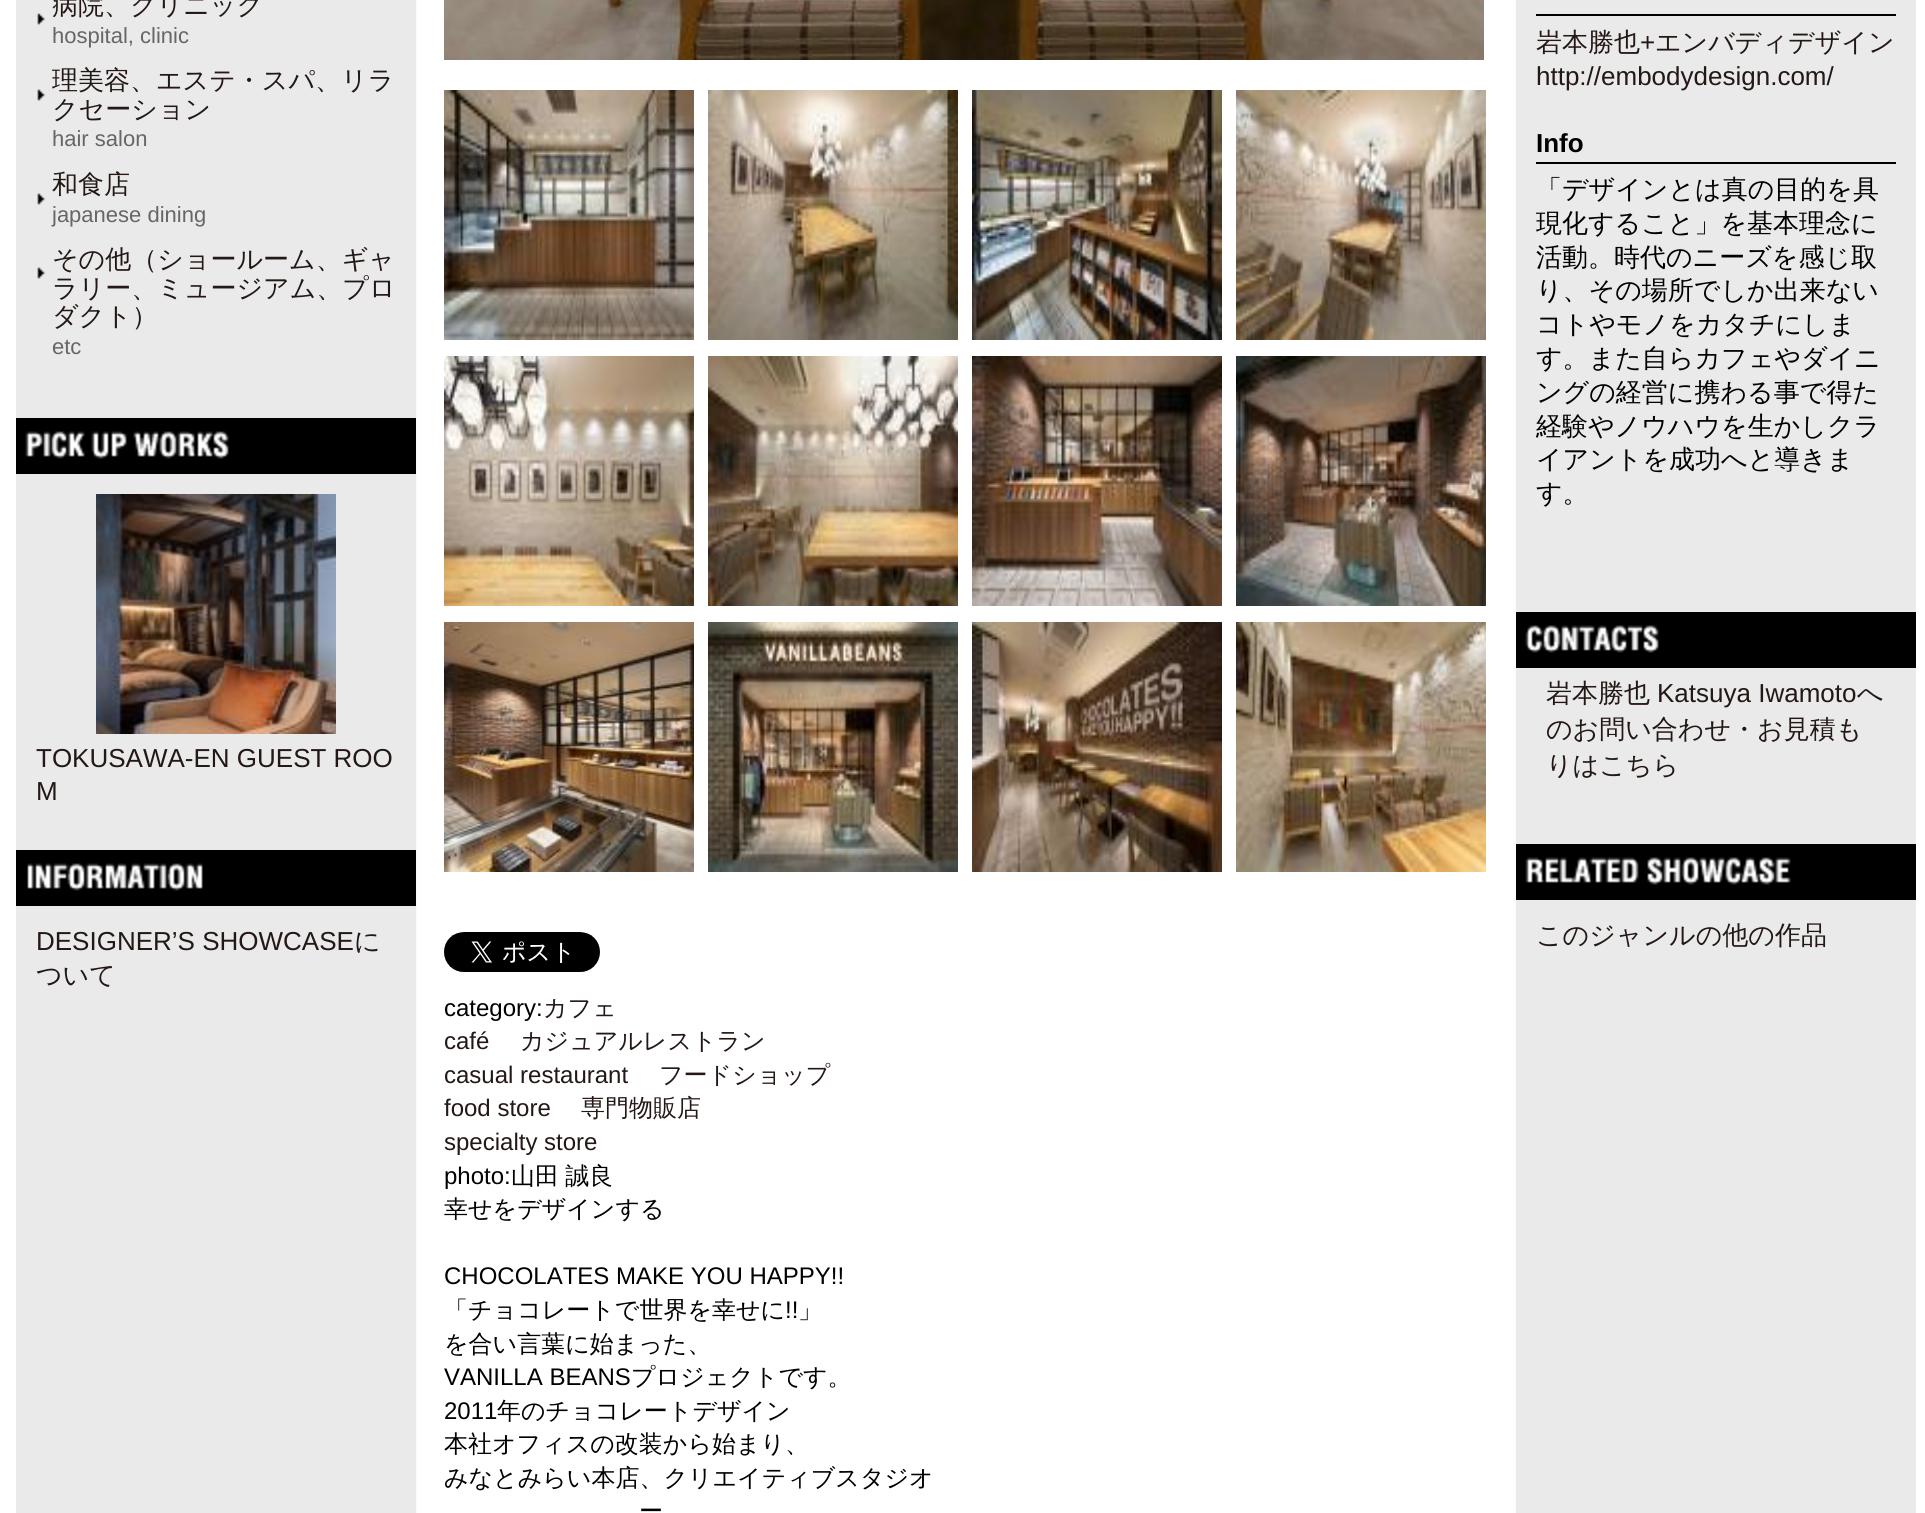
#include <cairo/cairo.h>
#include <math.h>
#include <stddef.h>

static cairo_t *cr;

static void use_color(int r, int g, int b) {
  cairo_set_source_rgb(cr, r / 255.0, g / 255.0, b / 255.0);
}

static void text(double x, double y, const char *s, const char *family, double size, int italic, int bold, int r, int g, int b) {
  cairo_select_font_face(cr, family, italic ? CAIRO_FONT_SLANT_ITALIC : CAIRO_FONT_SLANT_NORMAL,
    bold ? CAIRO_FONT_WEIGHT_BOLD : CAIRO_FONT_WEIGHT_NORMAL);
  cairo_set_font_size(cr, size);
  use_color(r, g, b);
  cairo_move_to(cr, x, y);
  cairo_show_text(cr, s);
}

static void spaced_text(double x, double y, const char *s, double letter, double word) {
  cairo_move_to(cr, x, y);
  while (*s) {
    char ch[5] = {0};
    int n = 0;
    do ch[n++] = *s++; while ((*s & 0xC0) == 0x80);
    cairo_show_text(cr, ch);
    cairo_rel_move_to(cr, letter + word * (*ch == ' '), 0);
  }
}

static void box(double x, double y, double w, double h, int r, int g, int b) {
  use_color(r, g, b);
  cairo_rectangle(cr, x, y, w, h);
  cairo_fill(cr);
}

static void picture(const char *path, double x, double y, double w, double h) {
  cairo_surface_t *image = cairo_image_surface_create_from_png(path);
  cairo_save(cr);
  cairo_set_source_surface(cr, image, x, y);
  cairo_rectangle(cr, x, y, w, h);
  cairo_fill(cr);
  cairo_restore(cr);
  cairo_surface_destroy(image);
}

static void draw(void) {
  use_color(255, 255, 255);
  cairo_paint(cr);
  picture("img_01.png", 416, 0, 1100, 1513);
  box(16, 0, 400, 1513, 234, 234, 234);
  picture("img_02.png", 37, 13, 8, 12);
  picture("img_02.png", 37, 89, 8, 12);
  picture("img_02.png", 37, 193, 8, 12);
  picture("img_02.png", 37, 267, 8, 12);
  picture("img_03.png", 16, 418, 400, 56);
  picture("img_04.png", 96, 494, 240, 240);
  picture("img_05.png", 16, 850, 400, 56);
  picture("img_06.png", 444, 0, 1040, 60);
  picture("img_07.png", 444, 90, 250, 250);
  picture("img_08.png", 708, 90, 250, 250);
  picture("img_09.png", 972, 90, 250, 250);
  picture("img_10.png", 1236, 90, 250, 250);
  picture("img_11.png", 444, 356, 250, 250);
  picture("img_12.png", 708, 356, 250, 250);
  picture("img_13.png", 972, 356, 250, 250);
  picture("img_14.png", 1236, 356, 250, 250);
  picture("img_15.png", 444, 622, 250, 250);
  picture("img_16.png", 708, 622, 250, 250);
  picture("img_17.png", 972, 622, 250, 250);
  picture("img_18.png", 1236, 622, 250, 250);
  picture("img_19.png", 444, 932, 156, 40);
  box(1516, 0, 400, 1513, 234, 234, 234);
  box(1536, 14, 360, 2, 0, 0, 0);
  box(1536, 162, 360, 2, 0, 0, 0);
  picture("img_20.png", 1516, 612, 400, 56);
  picture("img_21.png", 1516, 844, 400, 56);
  text(52, 14, "病院、クリニック", "WenQuanYi Zen Hei Medium", 26, 0, 0, 35, 24, 21);
  text(52, 43, "hospital, clinic", "Liberation Sans", 22, 0, 0, 102, 102, 102);
  text(52, 89, "理美容、エステ・スパ、リラ", "WenQuanYi Zen Hei Medium", 26, 0, 0, 35, 24, 21);
  text(52, 118, "クセーション", "WenQuanYi Zen Hei Medium", 26, 0, 0, 35, 24, 21);
  text(52, 146, "hair salon", "Liberation Sans", 22, 0, 0, 102, 102, 102);
  text(52, 193, "和食店", "WenQuanYi Zen Hei Medium", 26, 0, 0, 35, 24, 21);
  text(52, 222, "japanese dining", "Liberation Sans", 22, 0, 0, 102, 102, 102);
  text(52, 268, "その他（ショールーム、ギャ", "WenQuanYi Zen Hei Medium", 26, 0, 0, 35, 24, 21);
  text(52, 297, "ラリー、ミュージアム、プロ", "WenQuanYi Zen Hei Medium", 26, 0, 0, 35, 24, 21);
  text(52, 325, "ダクト）", "WenQuanYi Zen Hei Medium", 26, 0, 0, 35, 24, 21);
  text(52, 354, "etc", "Liberation Sans", 22, 0, 0, 102, 102, 102);
  text(36, 767, "TOKUSAWA-EN GUEST ROO", "Liberation Sans", 26, 0, 0, 35, 24, 21);
  text(36, 800, "M", "Liberation Sans", 26, 0, 0, 35, 24, 21);
  text(36, 950, "DESIGNER’S SHOWCASE", "Liberation Sans", 26, 0, 0, 35, 24, 21);
  text(354, 950, "に", "WenQuanYi Zen Hei Medium", 26, 0, 0, 35, 24, 21);
  text(36, 984, "ついて", "WenQuanYi Zen Hei Medium", 26, 0, 0, 35, 24, 21);
  text(444, 1016, "category:", "Liberation Sans", 24, 0, 0, 0, 0, 0);
  text(543, 1016, "カフェ", "WenQuanYi Zen Hei Medium", 24, 0, 0, 35, 24, 21);
  text(444, 1049, "café", "Liberation Sans", 24, 0, 0, 35, 24, 21);
  text(520, 1049, "カジュアルレストラン", "WenQuanYi Zen Hei Medium", 24, 0, 0, 35, 24, 21);
  text(444, 1083, "casual restaurant", "Liberation Sans", 24, 0, 0, 35, 24, 21);
  text(659, 1083, "フードショップ", "WenQuanYi Zen Hei Medium", 24, 0, 0, 35, 24, 21);
  text(444, 1116, "food store", "Liberation Sans", 24, 0, 0, 35, 24, 21);
  text(581, 1116, "専門物販店", "WenQuanYi Zen Hei Medium", 24, 0, 0, 35, 24, 21);
  text(444, 1150, "specialty store", "Liberation Sans", 24, 0, 0, 35, 24, 21);
  text(444, 1184, "photo:", "Liberation Sans", 24, 0, 0, 0, 0, 0);
  cairo_select_font_face(cr, "WenQuanYi Zen Hei Medium", CAIRO_FONT_SLANT_NORMAL, CAIRO_FONT_WEIGHT_NORMAL);
  spaced_text(511, 1184, "山田 誠良", 0, -1);
  text(444, 1217, "幸せをデザインする", "WenQuanYi Zen Hei Medium", 24, 0, 0, 0, 0, 0);
  text(444, 1284, "CHOCOLATES MAKE YOU HAPPY!!", "Liberation Sans", 24, 0, 0, 0, 0, 0);
  text(444, 1318, "「チョコレートで世界を幸せに", "WenQuanYi Zen Hei Medium", 24, 0, 0, 0, 0, 0);
  text(785, 1318, "!!", "Liberation Sans", 24, 0, 0, 0, 0, 0);
  text(798, 1318, "」", "WenQuanYi Zen Hei Medium", 24, 0, 0, 0, 0, 0);
  text(444, 1352, "を合い言葉に始まった、", "WenQuanYi Zen Hei Medium", 24, 0, 0, 0, 0, 0);
  text(444, 1385, "VANILLA BEANS", "Liberation Sans", 24, 0, 0, 0, 0, 0);
  text(631, 1385, "プロジェクトです。", "WenQuanYi Zen Hei Medium", 24, 0, 0, 0, 0, 0);
  text(444, 1419, "2011", "Liberation Sans", 24, 0, 0, 0, 0, 0);
  text(497, 1419, "年のチョコレートデザイン", "WenQuanYi Zen Hei Medium", 24, 0, 0, 0, 0, 0);
  text(444, 1452, "本社オフィスの改装から始まり、", "WenQuanYi Zen Hei Medium", 24, 0, 0, 0, 0, 0);
  text(444, 1486, "みなとみらい本店、クリエイティブスタジオ", "WenQuanYi Zen Hei Medium", 24, 0, 0, 0, 0, 0);
  text(639, 1519, "ー", "WenQuanYi Zen Hei Medium", 24, 0, 0, 0, 0, 0);
  text(1536, 51, "岩本勝也", "WenQuanYi Zen Hei Medium", 26, 0, 0, 35, 24, 21);
  text(1640, 51, "+", "Liberation Sans", 26, 0, 0, 35, 24, 21);
  text(1655, 51, "エンバディデザイン", "WenQuanYi Zen Hei Medium", 26, 0, 0, 35, 24, 21);
  text(1536, 85, "http://embodydesign.com/", "Liberation Sans", 26, 0, 0, 35, 24, 21);
  text(1536, 152, "Info", "Liberation Sans", 26, 0, 1, 0, 0, 0);
  text(1536, 198, "「デザインとは真の目的を具", "WenQuanYi Zen Hei Medium", 26, 0, 0, 0, 0, 0);
  text(1536, 232, "現化すること」を基本理念に", "WenQuanYi Zen Hei Medium", 26, 0, 0, 0, 0, 0);
  text(1536, 266, "活動。時代のニーズを感じ取", "WenQuanYi Zen Hei Medium", 26, 0, 0, 0, 0, 0);
  text(1536, 299, "り、その場所でしか出来ない", "WenQuanYi Zen Hei Medium", 26, 0, 0, 0, 0, 0);
  text(1536, 333, "コトやモノをカタチにしま", "WenQuanYi Zen Hei Medium", 26, 0, 0, 0, 0, 0);
  text(1536, 367, "す。また自らカフェやダイニ", "WenQuanYi Zen Hei Medium", 26, 0, 0, 0, 0, 0);
  text(1536, 401, "ングの経営に携わる事で得た", "WenQuanYi Zen Hei Medium", 26, 0, 0, 0, 0, 0);
  text(1536, 435, "経験やノウハウを生かしクラ", "WenQuanYi Zen Hei Medium", 26, 0, 0, 0, 0, 0);
  text(1536, 468, "イアントを成功へと導きま", "WenQuanYi Zen Hei Medium", 26, 0, 0, 0, 0, 0);
  text(1536, 502, "す。", "WenQuanYi Zen Hei Medium", 26, 0, 0, 0, 0, 0);
  text(1546, 702, "岩本勝也", "WenQuanYi Zen Hei Medium", 26, 0, 0, 35, 24, 21);
  text(1657, 702, "Katsuya Iwamoto", "Liberation Sans", 26, 0, 0, 35, 24, 21);
  text(1857, 702, "へ", "WenQuanYi Zen Hei Medium", 26, 0, 0, 35, 24, 21);
  text(1546, 738, "のお問い合わせ・お見積も", "WenQuanYi Zen Hei Medium", 26, 0, 0, 35, 24, 21);
  text(1546, 774, "りはこちら", "WenQuanYi Zen Hei Medium", 26, 0, 0, 35, 24, 21);
  text(1536, 944, "このジャンルの他の作品", "WenQuanYi Zen Hei Medium", 26, 0, 0, 35, 24, 21);
}

int main(void) {
  cairo_surface_t *surface = cairo_image_surface_create(CAIRO_FORMAT_RGB24, 1925, 1513);
  cr = cairo_create(surface);
  cairo_font_options_t *options = cairo_font_options_create();
  cairo_font_options_set_hint_metrics(options, CAIRO_HINT_METRICS_OFF);
  cairo_font_options_set_hint_style(options, CAIRO_HINT_STYLE_NONE);
  cairo_set_font_options(cr, options);
  cairo_set_miter_limit(cr, 4);
  draw();
  cairo_surface_write_to_png(surface, "out.png");
  cairo_font_options_destroy(options);
  cairo_destroy(cr);
  cairo_surface_destroy(surface);
  return 0;
}
